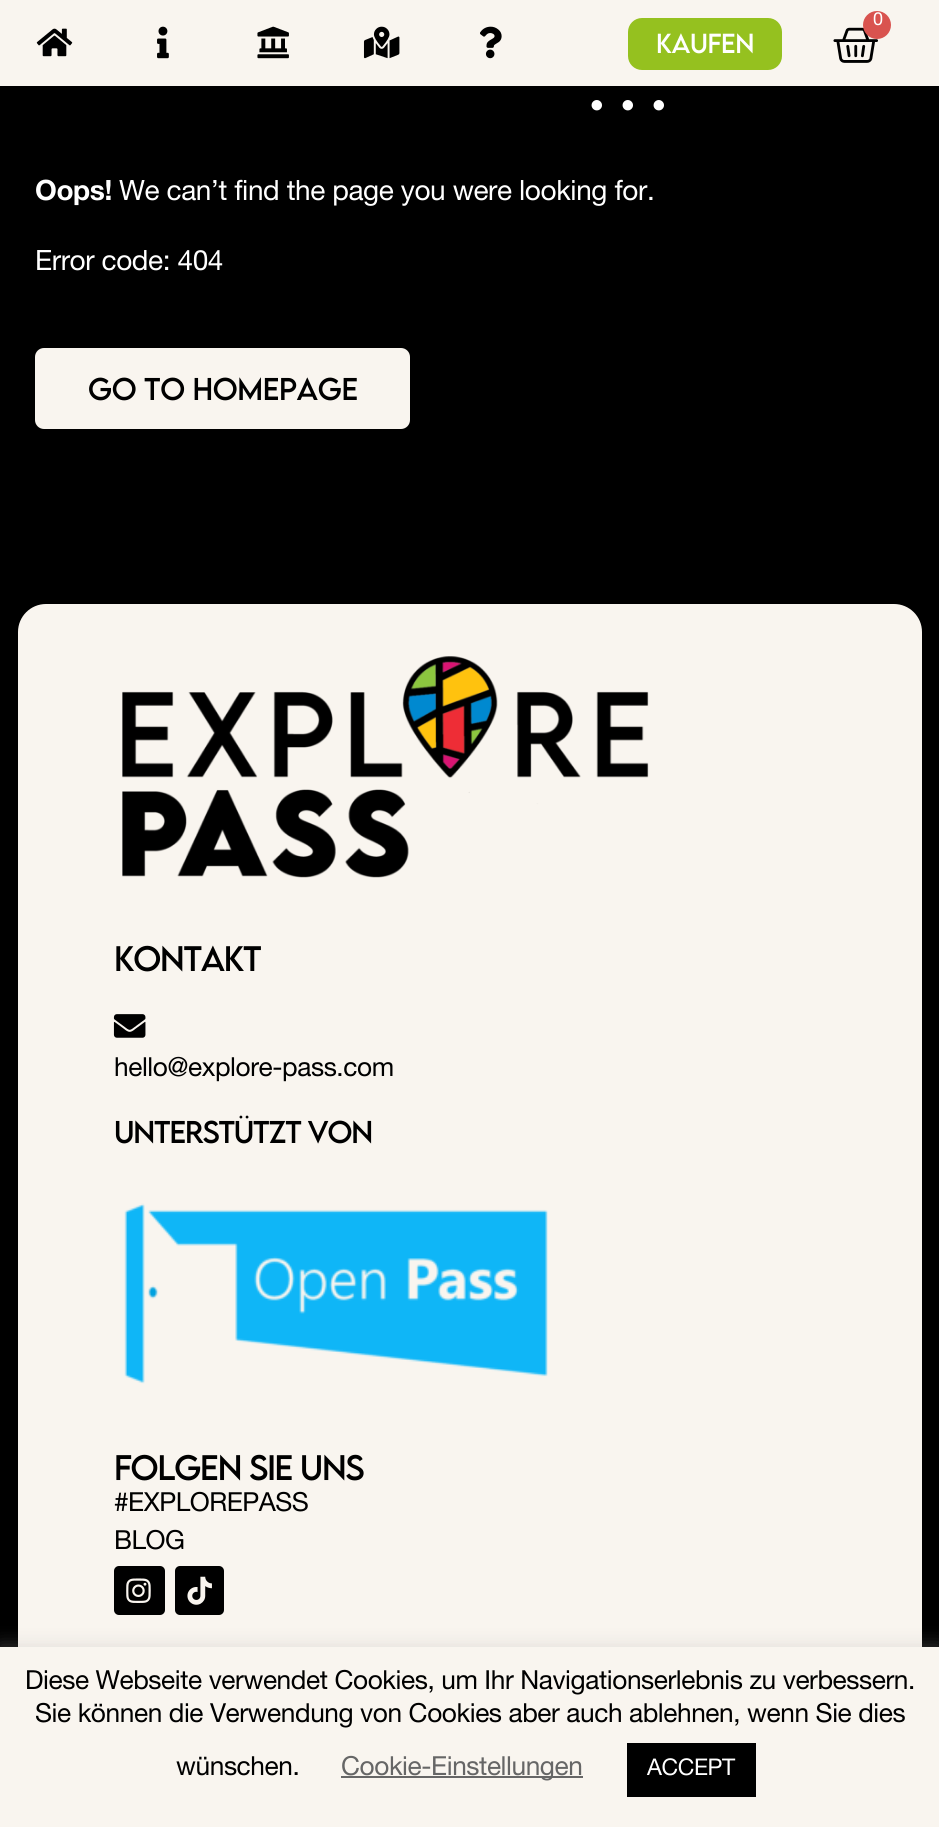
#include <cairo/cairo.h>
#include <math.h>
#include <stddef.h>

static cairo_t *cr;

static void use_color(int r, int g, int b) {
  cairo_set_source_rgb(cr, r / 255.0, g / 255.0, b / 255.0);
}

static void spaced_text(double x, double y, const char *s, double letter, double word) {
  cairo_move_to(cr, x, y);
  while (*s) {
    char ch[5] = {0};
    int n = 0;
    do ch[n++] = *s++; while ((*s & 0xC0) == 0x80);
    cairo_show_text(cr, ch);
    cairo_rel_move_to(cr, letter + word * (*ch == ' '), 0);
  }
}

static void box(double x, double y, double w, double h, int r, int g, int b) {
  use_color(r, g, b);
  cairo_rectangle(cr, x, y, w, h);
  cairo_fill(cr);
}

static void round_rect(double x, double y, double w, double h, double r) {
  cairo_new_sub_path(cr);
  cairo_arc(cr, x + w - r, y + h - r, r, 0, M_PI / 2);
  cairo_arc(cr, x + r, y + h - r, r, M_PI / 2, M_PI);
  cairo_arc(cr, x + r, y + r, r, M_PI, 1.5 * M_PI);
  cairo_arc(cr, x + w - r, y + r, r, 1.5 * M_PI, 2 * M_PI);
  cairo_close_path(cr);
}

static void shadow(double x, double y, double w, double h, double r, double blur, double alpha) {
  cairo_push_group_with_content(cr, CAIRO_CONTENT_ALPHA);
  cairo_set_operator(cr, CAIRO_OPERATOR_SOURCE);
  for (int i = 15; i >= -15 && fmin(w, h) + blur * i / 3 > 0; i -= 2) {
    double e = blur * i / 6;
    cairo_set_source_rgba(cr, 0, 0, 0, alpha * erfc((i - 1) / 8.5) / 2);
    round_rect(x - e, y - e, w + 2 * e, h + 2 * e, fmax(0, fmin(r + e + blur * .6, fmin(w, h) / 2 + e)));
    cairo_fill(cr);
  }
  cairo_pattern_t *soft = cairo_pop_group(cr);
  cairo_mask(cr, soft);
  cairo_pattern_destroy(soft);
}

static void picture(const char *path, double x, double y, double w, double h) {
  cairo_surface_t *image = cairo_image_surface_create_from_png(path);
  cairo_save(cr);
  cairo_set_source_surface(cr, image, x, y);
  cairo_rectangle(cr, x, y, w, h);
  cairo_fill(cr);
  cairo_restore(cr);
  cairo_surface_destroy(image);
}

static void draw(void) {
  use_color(0, 0, 0);
  cairo_paint(cr);
  box(0, 0, 939, 86, 249, 245, 239);
  picture("img_01.png", 36, 28, 37, 29);
  picture("img_02.png", 157, 26, 12, 33);
  picture("img_03.png", 257, 26, 32, 33);
  picture("img_04.png", 363, 26, 37, 33);
  picture("img_05.png", 480, 26, 22, 33);
  picture("img_06.png", 833, 27, 45, 36);
  use_color(217, 83, 79);
  cairo_arc(cr, 877, 25, 14, 0, 2 * M_PI);
  cairo_fill(cr);
  use_color(149, 193, 31);
  round_rect(628, 18, 154, 52, 14);
  cairo_fill(cr);
  use_color(249, 245, 239);
  round_rect(35, 348, 375, 81, 9);
  cairo_fill(cr);
  round_rect(18, 604, 904, 1214, 28);
  cairo_fill(cr);
  picture("img_07.png", 122, 656, 527, 222);
  picture("img_08.png", 113, 1014, 33, 24);
  picture("img_09.png", 124, 1203, 424, 181);
  use_color(0, 0, 0);
  round_rect(114, 1566, 51, 49, 5);
  cairo_fill(cr);
  picture("img_10.png", 126, 1578, 25, 25);
  round_rect(175, 1566, 49, 49, 5);
  cairo_fill(cr);
  picture("img_11.png", 187, 1576, 25, 29);
  use_color(172, 171, 171);
  shadow(0, 1645, 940, 180, 0, 9, 0.3);
  box(0, 1647, 939, 180, 249, 245, 239);
  box(341, 1776, 242, 2, 102, 102, 102);
  box(627, 1743, 129, 54, 0, 0, 0);
  cairo_select_font_face(cr, "Helvetica Neue", CAIRO_FONT_SLANT_NORMAL, CAIRO_FONT_WEIGHT_NORMAL);
  cairo_set_font_size(cr, 18);
  use_color(255, 255, 255);
  spaced_text(873, 25, "0", -0.4, 0);
  cairo_select_font_face(cr, "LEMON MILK", CAIRO_FONT_SLANT_NORMAL, CAIRO_FONT_WEIGHT_NORMAL);
  cairo_set_font_size(cr, 24.5);
  spaced_text(656, 53, "KAUFEN", -0.4, 0);
  cairo_set_font_size(cr, 63);
  spaced_text(588, 109, ". . .", -2.5, 0);
  cairo_select_font_face(cr, "Helvetica Neue", CAIRO_FONT_SLANT_NORMAL, CAIRO_FONT_WEIGHT_BOLD);
  cairo_set_font_size(cr, 28);
  spaced_text(35, 200, "Oops!", -0.4, 0);
  cairo_select_font_face(cr, "Helvetica Neue", CAIRO_FONT_SLANT_NORMAL, CAIRO_FONT_WEIGHT_NORMAL);
  spaced_text(119, 200, "We can’t find the page you were looking for.", -0.4, 0);
  spaced_text(35, 270, "Error code: 404", -0.4, 0);
  cairo_select_font_face(cr, "LEMON MILK", CAIRO_FONT_SLANT_NORMAL, CAIRO_FONT_WEIGHT_NORMAL);
  use_color(0, 0, 0);
  spaced_text(88, 400, "GO TO HOMEPAGE", -0.4, 0);
  cairo_set_font_size(cr, 31.5);
  spaced_text(114, 971, "Kontakt", -1.25, 0);
  cairo_select_font_face(cr, "Helvetica Neue", CAIRO_FONT_SLANT_NORMAL, CAIRO_FONT_WEIGHT_NORMAL);
  cairo_set_font_size(cr, 26.25);
  spaced_text(114, 1076, "hello@explore-pass.com", -0.4, 0);
  cairo_select_font_face(cr, "LEMON MILK", CAIRO_FONT_SLANT_NORMAL, CAIRO_FONT_WEIGHT_NORMAL);
  cairo_set_font_size(cr, 28);
  spaced_text(114, 1143, "Unterstützt von", -1.2, 0);
  cairo_set_font_size(cr, 31.5);
  spaced_text(114, 1480, "Folgen Sie uns", -1.25, 0);
  cairo_select_font_face(cr, "Helvetica Neue", CAIRO_FONT_SLANT_NORMAL, CAIRO_FONT_WEIGHT_NORMAL);
  cairo_set_font_size(cr, 26.25);
  spaced_text(114, 1511, "#EXPLOREPASS", -0.5, 0);
  spaced_text(114, 1549, "BLOG", -0.5, 0);
  spaced_text(25, 1689, "Diese Webseite verwendet Cookies, um Ihr Navigationserlebnis zu verbessern.", -0.4, 0);
  spaced_text(35, 1722, "Sie können die Verwendung von Cookies aber auch ablehnen, wenn Sie dies", -0.4, 0);
  spaced_text(176, 1775, "wünschen.", -0.4, 0);
  use_color(102, 102, 102);
  spaced_text(341, 1775, "Cookie-Einstellungen", -0.4, 0);
  cairo_set_font_size(cr, 23);
  use_color(255, 255, 255);
  spaced_text(647, 1775, "ACCEPT", -0.4, 0);
}

int main(void) {
  cairo_surface_t *surface = cairo_image_surface_create(CAIRO_FORMAT_RGB24, 939, 1827);
  cr = cairo_create(surface);
  cairo_font_options_t *options = cairo_font_options_create();
  cairo_font_options_set_hint_metrics(options, CAIRO_HINT_METRICS_OFF);
  cairo_font_options_set_hint_style(options, CAIRO_HINT_STYLE_NONE);
  cairo_set_font_options(cr, options);
  cairo_set_miter_limit(cr, 4);
  draw();
  cairo_surface_write_to_png(surface, "out.png");
  cairo_font_options_destroy(options);
  cairo_destroy(cr);
  cairo_surface_destroy(surface);
  return 0;
}
